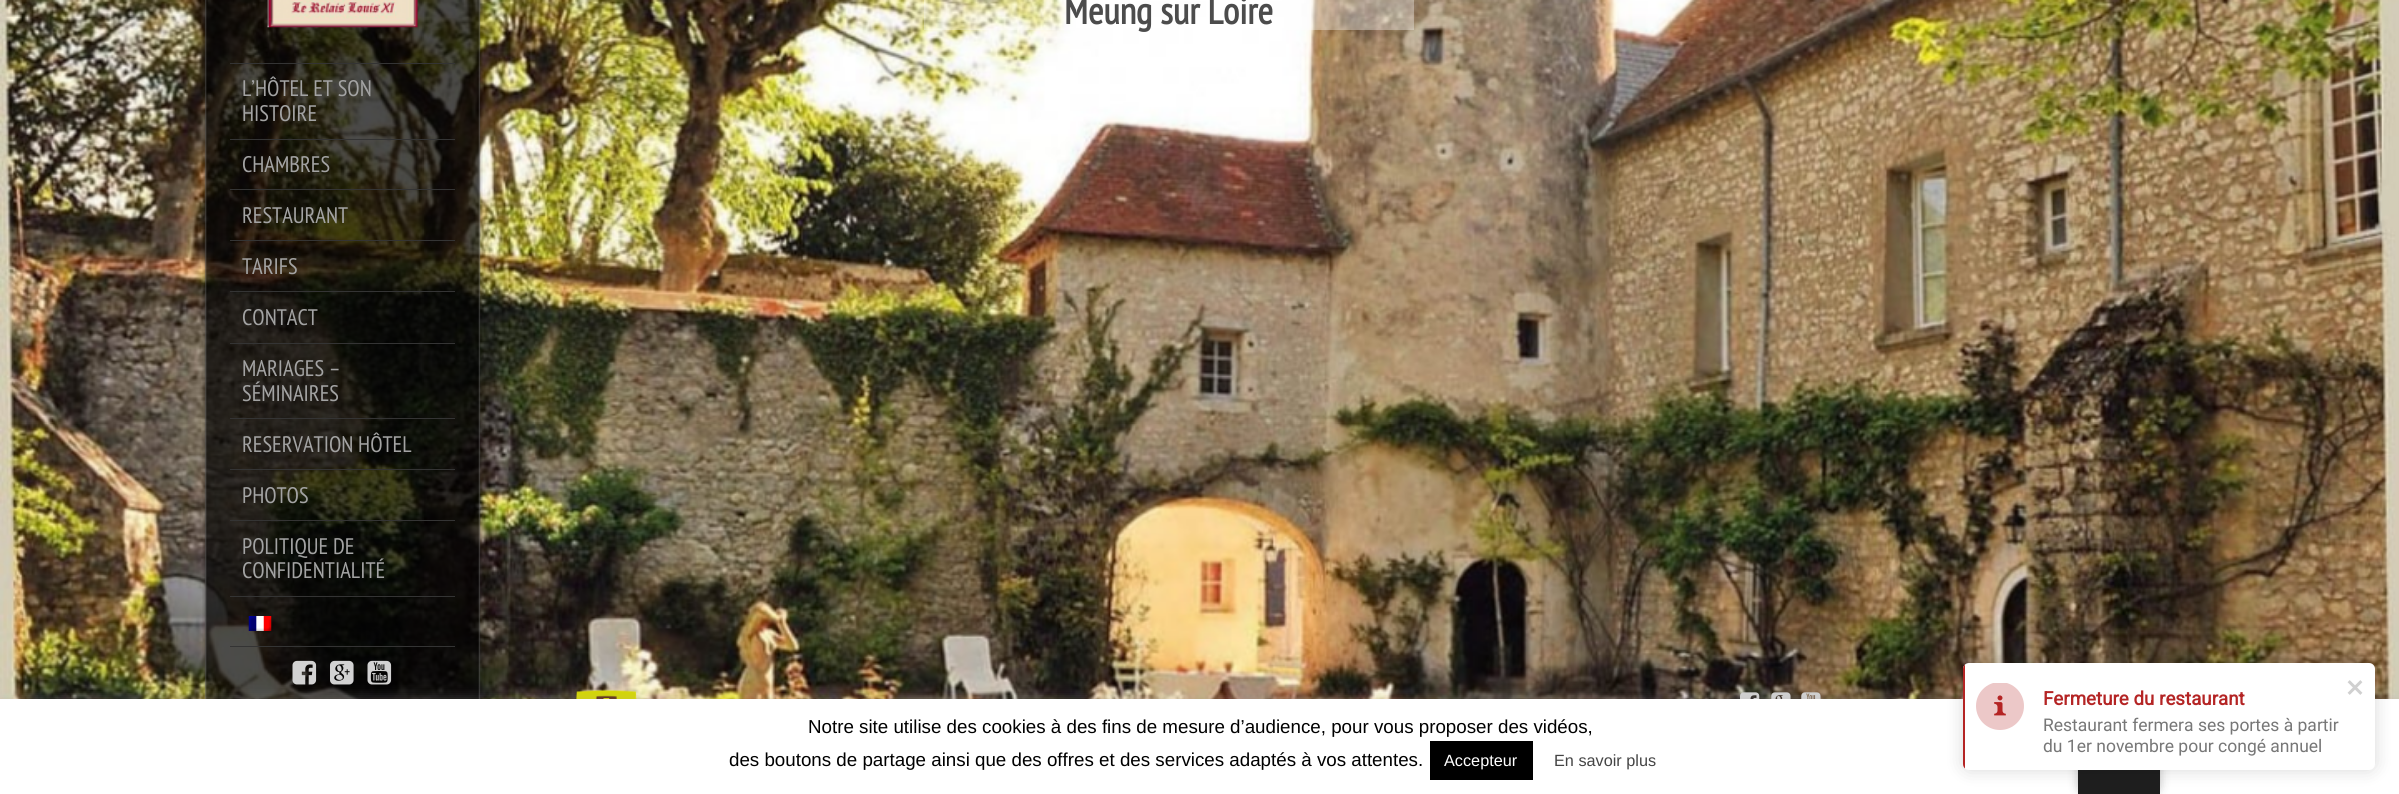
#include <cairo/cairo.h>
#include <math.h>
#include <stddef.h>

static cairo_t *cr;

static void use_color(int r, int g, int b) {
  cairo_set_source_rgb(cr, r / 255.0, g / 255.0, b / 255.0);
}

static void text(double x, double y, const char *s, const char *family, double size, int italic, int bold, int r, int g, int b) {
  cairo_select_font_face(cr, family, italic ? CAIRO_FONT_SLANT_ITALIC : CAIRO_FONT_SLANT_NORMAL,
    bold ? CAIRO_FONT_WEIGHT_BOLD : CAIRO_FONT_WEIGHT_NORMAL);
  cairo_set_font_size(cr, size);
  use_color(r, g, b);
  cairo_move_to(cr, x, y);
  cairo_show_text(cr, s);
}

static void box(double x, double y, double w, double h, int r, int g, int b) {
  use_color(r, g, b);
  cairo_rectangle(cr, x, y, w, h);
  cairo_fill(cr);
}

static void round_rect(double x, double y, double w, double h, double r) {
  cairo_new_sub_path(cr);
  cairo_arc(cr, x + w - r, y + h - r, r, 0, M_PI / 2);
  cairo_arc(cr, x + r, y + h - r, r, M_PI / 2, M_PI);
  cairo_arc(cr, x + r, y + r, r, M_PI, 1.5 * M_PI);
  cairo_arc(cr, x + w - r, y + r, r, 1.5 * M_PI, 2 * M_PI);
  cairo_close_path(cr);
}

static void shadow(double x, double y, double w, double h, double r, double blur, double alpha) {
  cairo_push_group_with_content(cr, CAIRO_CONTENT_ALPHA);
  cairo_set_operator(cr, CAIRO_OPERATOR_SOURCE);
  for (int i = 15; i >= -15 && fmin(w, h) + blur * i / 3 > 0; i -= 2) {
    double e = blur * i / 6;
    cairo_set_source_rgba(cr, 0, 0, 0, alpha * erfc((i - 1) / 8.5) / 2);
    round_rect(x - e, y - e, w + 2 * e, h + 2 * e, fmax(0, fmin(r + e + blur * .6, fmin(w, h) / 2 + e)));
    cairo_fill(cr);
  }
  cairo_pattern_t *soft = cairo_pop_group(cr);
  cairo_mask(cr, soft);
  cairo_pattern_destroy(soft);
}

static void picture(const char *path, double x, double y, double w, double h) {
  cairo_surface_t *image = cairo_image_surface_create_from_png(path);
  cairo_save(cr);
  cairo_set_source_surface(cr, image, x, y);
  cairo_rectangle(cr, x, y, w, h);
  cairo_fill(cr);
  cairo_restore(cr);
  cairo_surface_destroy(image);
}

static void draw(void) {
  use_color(255, 255, 255);
  cairo_paint(cr);
  picture("img_01.png", 0, 0, 2399, 699);
  cairo_set_source_rgba(cr, 1, 1, 1, 0.35);
  cairo_rectangle(cr, 924, 0, 490, 30);
  cairo_fill(cr);
  picture("img_02.png", 575, 689, 62, 10);
  picture("img_03.png", 1740, 692, 20, 7);
  picture("img_04.png", 1771, 692, 20, 7);
  picture("img_05.png", 1801, 692, 20, 7);
  picture("img_06.png", 202, 0, 281, 699);
  picture("img_07.png", 267, 0, 151, 28);
  box(230, 63, 225, 1, 52, 52, 52);
  box(230, 139, 225, 1, 52, 52, 52);
  box(230, 189, 225, 1, 52, 52, 52);
  box(230, 240, 225, 1, 52, 52, 52);
  box(230, 291, 225, 1, 52, 52, 52);
  box(230, 343, 225, 1, 52, 52, 52);
  box(230, 418, 225, 1, 52, 52, 52);
  box(230, 469, 225, 1, 52, 52, 52);
  box(230, 520, 225, 1, 52, 52, 52);
  box(230, 596, 225, 1, 52, 52, 52);
  box(230, 646, 225, 1, 52, 52, 52);
  picture("img_08.png", 248, 616, 24, 15);
  picture("img_09.png", 292, 660, 25, 25);
  picture("img_10.png", 330, 660, 24, 25);
  picture("img_11.png", 367, 660, 25, 25);
  use_color(172, 171, 171);
  shadow(0, 698, 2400, 96, 0, 6, 0.3);
  box(0, 699, 2399, 95, 255, 255, 255);
  use_color(0, 0, 0);
  shadow(2078, 723, 82, 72, 10, 5, 0.25);
  box(2078, 770, 82, 24, 30, 30, 30);
  use_color(0, 0, 0);
  shadow(1963, 663, 412, 107, 6, 9, 0.15);
  use_color(255, 255, 255);
  round_rect(1963, 663, 412, 107, 6);
  cairo_fill(cr);
  picture("img_12.png", 2347, 680, 16, 15);
  cairo_save(cr);
  round_rect(1963, 663, 412, 107, 6);
  cairo_clip(cr);
  box(1963, 663, 2, 107, 180, 36, 36);
  cairo_restore(cr);
  cairo_save(cr);
  cairo_rectangle(cr, 1976, 683, 48, 47);
  cairo_clip(cr);
  use_color(236, 200, 200);
  cairo_arc(cr, 2000, 706, 24, 0, 2 * M_PI);
  cairo_fill(cr);
  cairo_restore(cr);
  picture("img_13.png", 1994, 695, 12, 21);
  box(1430, 741, 103, 39, 0, 0, 0);
  text(1064, 24, "Meung sur Loire", "PT Sans Narrow", 37.5, 0, 1, 76, 76, 76);
  text(242, 96, "L’HÔTEL ET SON", "PT Sans Narrow", 22.5, 0, 0, 163, 163, 163);
  text(242, 121, "HISTOIRE", "PT Sans Narrow", 22.5, 0, 0, 163, 163, 163);
  text(242, 172, "CHAMBRES", "PT Sans Narrow", 22.5, 0, 0, 163, 163, 163);
  text(242, 223, "RESTAURANT", "PT Sans Narrow", 22.5, 0, 0, 163, 163, 163);
  text(242, 274, "TARIFS", "PT Sans Narrow", 22.5, 0, 0, 163, 163, 163);
  text(242, 325, "CONTACT", "PT Sans Narrow", 22.5, 0, 0, 163, 163, 163);
  text(242, 376, "MARIAGES –", "PT Sans Narrow", 22.5, 0, 0, 163, 163, 163);
  text(242, 401, "SÉMINAIRES", "PT Sans Narrow", 22.5, 0, 0, 163, 163, 163);
  text(242, 452, "RESERVATION HÔTEL", "PT Sans Narrow", 22.5, 0, 0, 163, 163, 163);
  text(242, 503, "PHOTOS", "PT Sans Narrow", 22.5, 0, 0, 163, 163, 163);
  text(242, 554, "POLITIQUE DE", "PT Sans Narrow", 22.5, 0, 0, 163, 163, 163);
  text(242, 578, "CONFIDENTIALITÉ", "PT Sans Narrow", 22.5, 0, 0, 163, 163, 163);
  text(2043, 705, "Fermeture du restaurant", "Roboto", 18.75, 0, 1, 180, 36, 36);
  text(2043, 731, "Restaurant fermera ses portes à partir", "Roboto", 17.5, 0, 0, 119, 119, 119);
  text(2043, 752, "du 1er novembre pour congé annuel", "Roboto", 17.5, 0, 0, 119, 119, 119);
  text(808, 733, "Notre site utilise des cookies à des fins de mesure d’audience, pour vous proposer des vidéos,", "Liberation Sans", 18.75, 0, 0, 0, 0, 0);
  text(729, 766, "des boutons de partage ainsi que des offres et des services adaptés à vos attentes.", "Liberation Sans", 18.75, 0, 0, 0, 0, 0);
  text(1444, 766, "Accepteur", "Liberation Sans", 16.25, 0, 0, 255, 255, 255);
  text(1554, 766, "En savoir plus", "Liberation Sans", 16.25, 0, 0, 68, 68, 68);
}

int main(void) {
  cairo_surface_t *surface = cairo_image_surface_create(CAIRO_FORMAT_RGB24, 2399, 794);
  cr = cairo_create(surface);
  cairo_font_options_t *options = cairo_font_options_create();
  cairo_font_options_set_hint_metrics(options, CAIRO_HINT_METRICS_OFF);
  cairo_font_options_set_hint_style(options, CAIRO_HINT_STYLE_NONE);
  cairo_set_font_options(cr, options);
  cairo_set_miter_limit(cr, 4);
  draw();
  cairo_surface_write_to_png(surface, "out.png");
  cairo_font_options_destroy(options);
  cairo_destroy(cr);
  cairo_surface_destroy(surface);
  return 0;
}
